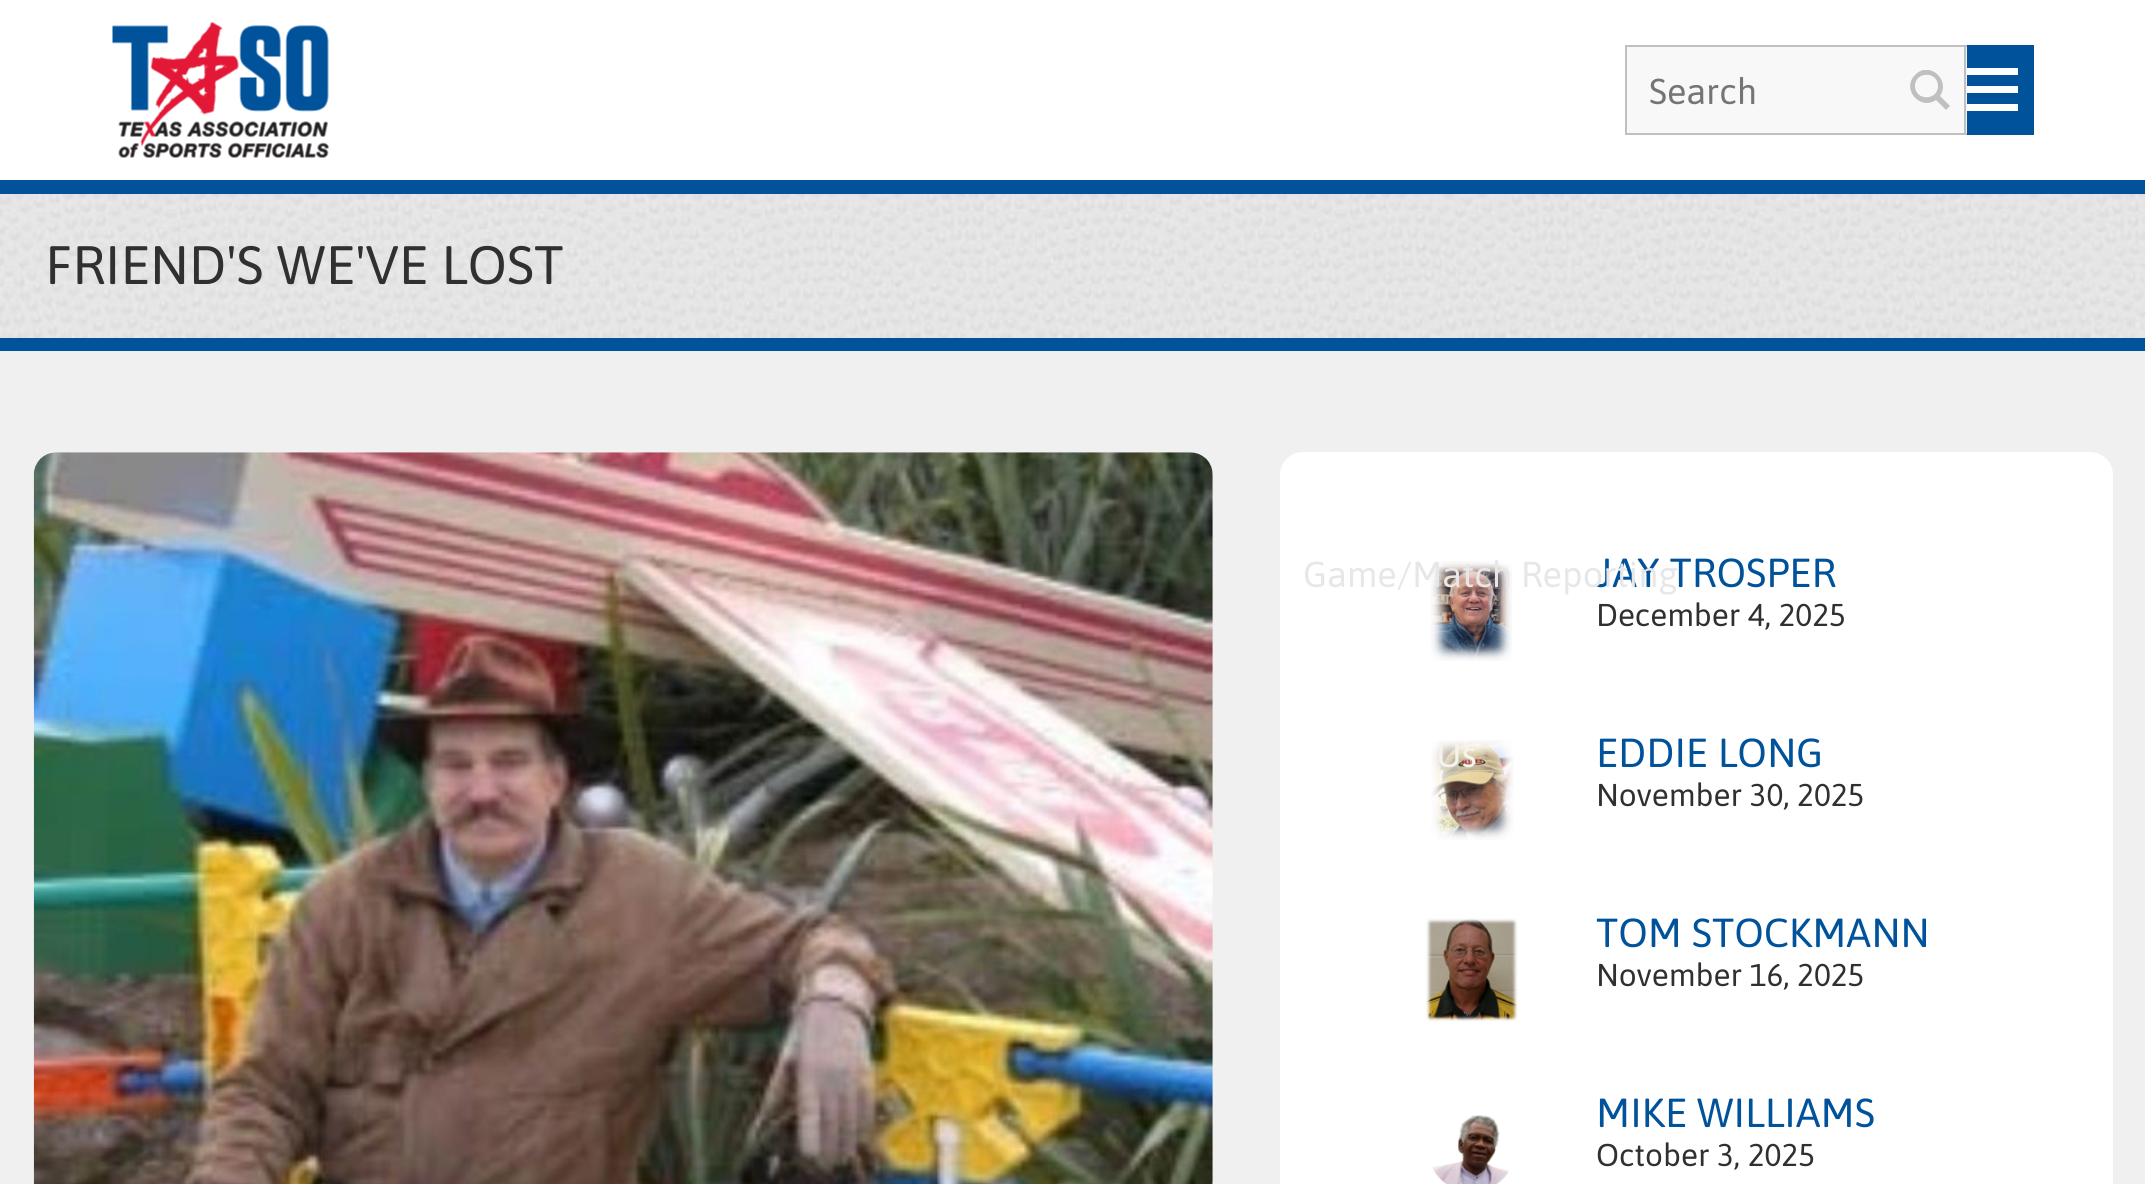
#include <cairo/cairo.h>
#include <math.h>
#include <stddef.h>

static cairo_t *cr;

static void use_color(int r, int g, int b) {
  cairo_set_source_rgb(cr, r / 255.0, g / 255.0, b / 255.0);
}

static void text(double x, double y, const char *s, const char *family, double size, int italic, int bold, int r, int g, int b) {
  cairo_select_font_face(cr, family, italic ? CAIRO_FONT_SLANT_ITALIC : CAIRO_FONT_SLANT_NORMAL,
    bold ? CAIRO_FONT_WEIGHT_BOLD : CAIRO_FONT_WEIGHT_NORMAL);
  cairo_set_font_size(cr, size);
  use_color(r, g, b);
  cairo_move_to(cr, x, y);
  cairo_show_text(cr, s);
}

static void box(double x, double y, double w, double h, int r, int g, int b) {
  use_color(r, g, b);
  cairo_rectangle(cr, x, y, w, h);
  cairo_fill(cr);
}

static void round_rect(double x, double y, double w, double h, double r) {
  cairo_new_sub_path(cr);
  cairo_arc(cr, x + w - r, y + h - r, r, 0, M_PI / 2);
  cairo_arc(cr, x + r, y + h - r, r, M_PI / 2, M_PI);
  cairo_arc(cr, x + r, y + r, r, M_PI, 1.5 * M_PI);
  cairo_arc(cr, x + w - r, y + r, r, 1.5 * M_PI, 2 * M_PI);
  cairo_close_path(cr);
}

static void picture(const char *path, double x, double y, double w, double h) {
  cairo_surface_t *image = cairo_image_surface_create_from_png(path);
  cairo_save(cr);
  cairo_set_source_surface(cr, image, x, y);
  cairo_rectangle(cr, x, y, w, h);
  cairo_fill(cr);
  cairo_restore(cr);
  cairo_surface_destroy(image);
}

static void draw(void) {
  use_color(240, 240, 240);
  cairo_paint(cr);
  picture("img_01.png", 0, 194, 2145, 144);
  box(0, 338, 2145, 13, 0, 82, 155);
  box(0, 0, 2145, 180, 255, 255, 255);
  box(0, 180, 2145, 14, 0, 82, 155);
  picture("img_02.png", 112, 22, 217, 136);
  box(1967, 45, 67, 90, 0, 82, 155);
  box(1960, 68, 58, 7, 255, 255, 255);
  box(1960, 86, 58, 7, 255, 255, 255);
  box(1960, 104, 58, 7, 255, 255, 255);
  box(1627, 47, 340, 86, 248, 248, 248);
  box(1625, 45, 342, 2, 192, 192, 192);
  box(1625, 133, 270, 2, 192, 192, 192);
  box(1625, 45, 2, 90, 192, 192, 192);
  box(1964, 45, 2, 90, 192, 192, 192);
  box(1895, 133, 72, 2, 192, 192, 192);
  cairo_save(cr);
  cairo_rectangle(cr, 1910, 70, 41, 40);
  cairo_clip(cr);
  cairo_new_path(cr);
  cairo_move_to(cr, 1950, 106);
  cairo_line_to(cr, 1940, 96);
  cairo_curve_to(cr, 1951, 80, 1929, 60, 1915, 75);
  cairo_curve_to(cr, 1901, 89, 1920, 111, 1936, 100);
  cairo_line_to(cr, 1946, 110);
  cairo_close_path(cr);
  cairo_move_to(cr, 1915, 86);
  cairo_curve_to(cr, 1915, 71, 1938, 71, 1938, 86);
  cairo_curve_to(cr, 1938, 101, 1915, 101, 1915, 86);
  cairo_close_path(cr);
  cairo_fill(cr);
  cairo_restore(cr);
  picture("img_03.png", 33, 452, 1180, 732);
  use_color(255, 255, 255);
  round_rect(1280, 452, 833, 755, 23);
  cairo_fill(cr);
  picture("img_04.png", 1430, 561, 82, 100);
  picture("img_05.png", 1431, 740, 83, 100);
  picture("img_06.png", 1425, 918, 93, 104);
  picture("img_07.png", 1432, 1115, 77, 69);
  text(45, 284, "FRIEND'S WE'VE LOST", "Asap", 54, 0, 0, 48, 48, 48);
  text(1649, 104, "Search", "Asap", 36, 0, 0, 117, 117, 117);
  text(1436, 767, "Us", "Asap", 36, 0, 0, 245, 243, 238);
  text(1596, 587, "JAY TROSPER", "Asap", 40.5, 0, 0, 0, 82, 155);
  text(1303, 587, "Game/Match Reporting", "Asap", 36, 0, 0, 231, 231, 233);
  text(1596, 626, "December 4, 2025", "Asap", 31.5, 0, 0, 48, 48, 48);
  text(1596, 767, "EDDIE LONG", "Asap", 40.5, 0, 0, 0, 82, 155);
  text(1596, 806, "November 30, 2025", "Asap", 31.5, 0, 0, 48, 48, 48);
  text(1596, 947, "TOM STOCKMANN", "Asap", 40.5, 0, 0, 0, 82, 155);
  text(1596, 986, "November 16, 2025", "Asap", 31.5, 0, 0, 48, 48, 48);
  text(1596, 1127, "MIKE WILLIAMS", "Asap", 40.5, 0, 0, 0, 82, 155);
  text(1596, 1166, "October 3, 2025", "Asap", 31.5, 0, 0, 48, 48, 48);
}

int main(void) {
  cairo_surface_t *surface = cairo_image_surface_create(CAIRO_FORMAT_RGB24, 2145, 1184);
  cr = cairo_create(surface);
  cairo_font_options_t *options = cairo_font_options_create();
  cairo_font_options_set_hint_metrics(options, CAIRO_HINT_METRICS_OFF);
  cairo_font_options_set_hint_style(options, CAIRO_HINT_STYLE_NONE);
  cairo_set_font_options(cr, options);
  cairo_set_miter_limit(cr, 4);
  draw();
  cairo_surface_write_to_png(surface, "out.png");
  cairo_font_options_destroy(options);
  cairo_destroy(cr);
  cairo_surface_destroy(surface);
  return 0;
}
